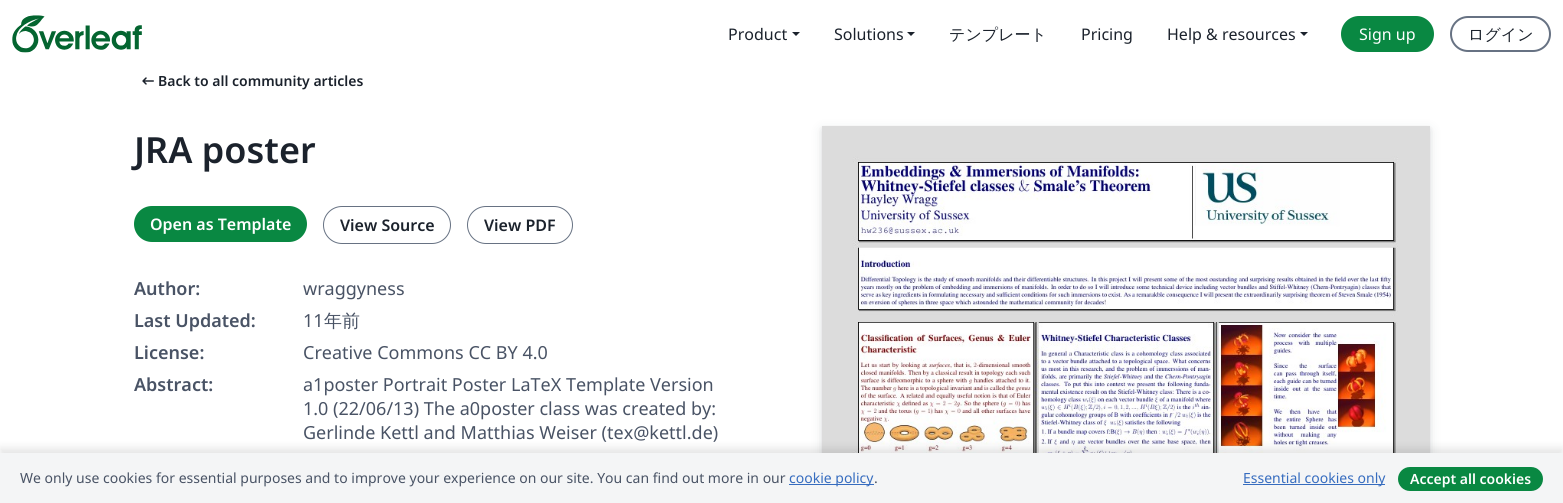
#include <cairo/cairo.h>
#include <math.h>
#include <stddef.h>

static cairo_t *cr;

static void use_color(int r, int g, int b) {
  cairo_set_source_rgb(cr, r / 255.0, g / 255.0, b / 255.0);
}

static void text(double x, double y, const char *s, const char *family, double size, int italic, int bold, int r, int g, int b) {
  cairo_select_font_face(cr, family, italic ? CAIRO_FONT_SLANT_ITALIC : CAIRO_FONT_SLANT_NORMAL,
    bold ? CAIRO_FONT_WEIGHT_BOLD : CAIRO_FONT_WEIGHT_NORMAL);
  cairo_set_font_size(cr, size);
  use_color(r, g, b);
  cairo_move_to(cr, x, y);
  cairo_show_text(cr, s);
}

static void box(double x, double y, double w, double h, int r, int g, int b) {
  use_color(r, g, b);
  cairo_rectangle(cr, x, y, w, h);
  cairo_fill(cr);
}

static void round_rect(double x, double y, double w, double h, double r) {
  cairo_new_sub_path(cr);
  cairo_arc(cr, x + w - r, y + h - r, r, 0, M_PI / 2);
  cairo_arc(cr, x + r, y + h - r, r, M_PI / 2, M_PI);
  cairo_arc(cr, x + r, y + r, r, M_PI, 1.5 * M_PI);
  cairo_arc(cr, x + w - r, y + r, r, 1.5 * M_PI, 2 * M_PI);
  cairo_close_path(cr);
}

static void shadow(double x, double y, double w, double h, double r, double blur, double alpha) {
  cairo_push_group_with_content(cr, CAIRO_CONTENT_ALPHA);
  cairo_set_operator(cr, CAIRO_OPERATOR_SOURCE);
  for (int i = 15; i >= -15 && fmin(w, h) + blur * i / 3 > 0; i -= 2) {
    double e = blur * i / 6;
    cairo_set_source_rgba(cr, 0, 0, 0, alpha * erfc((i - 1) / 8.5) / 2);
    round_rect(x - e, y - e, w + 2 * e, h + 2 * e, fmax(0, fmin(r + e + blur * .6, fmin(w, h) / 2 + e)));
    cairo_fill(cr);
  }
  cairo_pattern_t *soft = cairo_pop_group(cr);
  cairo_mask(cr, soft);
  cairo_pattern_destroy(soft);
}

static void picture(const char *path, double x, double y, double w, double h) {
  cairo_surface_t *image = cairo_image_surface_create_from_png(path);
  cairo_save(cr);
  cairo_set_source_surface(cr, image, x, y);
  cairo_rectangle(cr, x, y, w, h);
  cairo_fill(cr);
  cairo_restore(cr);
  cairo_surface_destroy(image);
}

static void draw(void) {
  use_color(255, 255, 255);
  cairo_paint(cr);
  picture("img_01.png", 12, 15, 130, 38);
  use_color(27, 34, 44);
  cairo_new_path(cr);
  cairo_move_to(cr, 792, 32);
  cairo_line_to(cr, 800, 32);
  cairo_line_to(cr, 796, 36);
  cairo_close_path(cr);
  cairo_fill(cr);
  cairo_new_path(cr);
  cairo_move_to(cr, 907, 32);
  cairo_line_to(cr, 915, 32);
  cairo_line_to(cr, 911, 36);
  cairo_close_path(cr);
  cairo_fill(cr);
  cairo_new_path(cr);
  cairo_move_to(cr, 1300, 32);
  cairo_line_to(cr, 1308, 32);
  cairo_line_to(cr, 1304, 36);
  cairo_close_path(cr);
  cairo_fill(cr);
  use_color(9, 136, 66);
  round_rect(1342, 17, 91, 34, 17);
  cairo_fill_preserve(cr);
  cairo_stroke(cr);
  round_rect(1451, 17, 99, 34, 17);
  use_color(103, 114, 131);
  cairo_stroke(cr);
  picture("img_02.png", 142, 77, 12, 8);
  use_color(9, 136, 66);
  round_rect(134, 206, 173, 36, 18);
  cairo_fill(cr);
  round_rect(323.5, 206.5, 127, 37, 18.5);
  use_color(103, 114, 131);
  cairo_set_line_width(cr, 1);
  cairo_stroke(cr);
  round_rect(467.5, 206.5, 105, 37, 18.5);
  cairo_stroke(cr);
  use_color(30, 37, 48);
  shadow(822, 128, 608, 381, 0, 2, 0.08);
  shadow(822, 130, 608, 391, 0, 6, 0.12);
  picture("img_03.png", 822, 126, 608, 327);
  use_color(0, 0, 0);
  shadow(0, 448, 1563, 50, 0, 4, 0.1);
  box(0, 453, 1563, 50, 244, 245, 246);
  box(789, 484, 85, 1, 54, 108, 191);
  box(1243, 484, 142, 1, 54, 108, 191);
  use_color(9, 136, 66);
  round_rect(1398, 467, 145, 24, 12);
  cairo_fill(cr);
  text(728, 40, "Product", "Noto Sans", 16, 0, 0, 27, 34, 44);
  text(834, 40, "Solutions", "Noto Sans", 16, 0, 0, 27, 34, 44);
  text(949, 40, "テンプレート", "WenQuanYi Zen Hei Medium", 16, 0, 0, 27, 34, 44);
  text(1081, 40, "Pricing", "Noto Sans", 16, 0, 0, 27, 34, 44);
  text(1167, 40, "Help & resources", "Noto Sans", 16, 0, 0, 27, 34, 44);
  text(1359, 40, "Sign up", "Noto Sans", 16, 0, 0, 255, 255, 255);
  text(1468, 40, "ログイン", "WenQuanYi Zen Hei Medium", 16, 0, 0, 27, 34, 44);
  text(158, 86, "Back to all community articles", "Noto Sans SemiBold", 14, 0, 0, 27, 34, 44);
  text(134, 163, "JRA poster", "Noto Sans SemiBold", 36, 0, 0, 27, 34, 44);
  text(150, 230, "Open as Template", "Noto Sans SemiBold", 16, 0, 0, 255, 255, 255);
  text(340, 231, "View Source", "Noto Sans SemiBold", 16, 0, 0, 27, 34, 44);
  text(484, 231, "View PDF", "Noto Sans SemiBold", 16, 0, 0, 27, 34, 44);
  text(134, 295, "Author:", "Noto Sans SemiBold", 18, 0, 0, 73, 83, 101);
  text(303, 295, "wraggyness", "Noto Sans", 18, 0, 0, 73, 83, 101);
  text(134, 327, "Last Updated:", "Noto Sans SemiBold", 18, 0, 0, 73, 83, 101);
  text(303, 327, "11", "Noto Sans", 18, 0, 0, 73, 83, 101);
  text(324, 327, "年前", "WenQuanYi Zen Hei Medium", 18, 0, 0, 73, 83, 101);
  text(134, 359, "License:", "Noto Sans SemiBold", 18, 0, 0, 73, 83, 101);
  text(303, 359, "Creative Commons CC BY 4.0", "Noto Sans", 18, 0, 0, 73, 83, 101);
  text(134, 391, "Abstract:", "Noto Sans SemiBold", 18, 0, 0, 73, 83, 101);
  text(303, 391, "a1poster Portrait Poster LaTeX Template Version", "Noto Sans", 18, 0, 0, 73, 83, 101);
  text(303, 415, "1.0 (22/06/13) The a0poster class was created by:", "Noto Sans", 18, 0, 0, 73, 83, 101);
  text(303, 439, "Gerlinde Kettl and Matthias Weiser (tex@kettl.de)", "Noto Sans", 18, 0, 0, 73, 83, 101);
  text(20, 483, "We only use cookies for essential purposes and to improve your experience on our site. You can find out more in our", "Noto Sans", 14, 0, 0, 73, 83, 101);
  text(789, 483, "cookie policy", "Noto Sans", 14, 0, 0, 54, 108, 191);
  text(874, 483, ".", "Noto Sans", 14, 0, 0, 73, 83, 101);
  text(1243, 483, "Essential cookies only", "Noto Sans", 14, 0, 0, 54, 108, 191);
  text(1410, 484, "Accept all cookies", "Noto Sans SemiBold", 14, 0, 0, 255, 255, 255);
}

int main(void) {
  cairo_surface_t *surface = cairo_image_surface_create(CAIRO_FORMAT_RGB24, 1563, 503);
  cr = cairo_create(surface);
  cairo_font_options_t *options = cairo_font_options_create();
  cairo_font_options_set_hint_metrics(options, CAIRO_HINT_METRICS_OFF);
  cairo_font_options_set_hint_style(options, CAIRO_HINT_STYLE_NONE);
  cairo_set_font_options(cr, options);
  cairo_set_miter_limit(cr, 4);
  draw();
  cairo_surface_write_to_png(surface, "out.png");
  cairo_font_options_destroy(options);
  cairo_destroy(cr);
  cairo_surface_destroy(surface);
  return 0;
}
